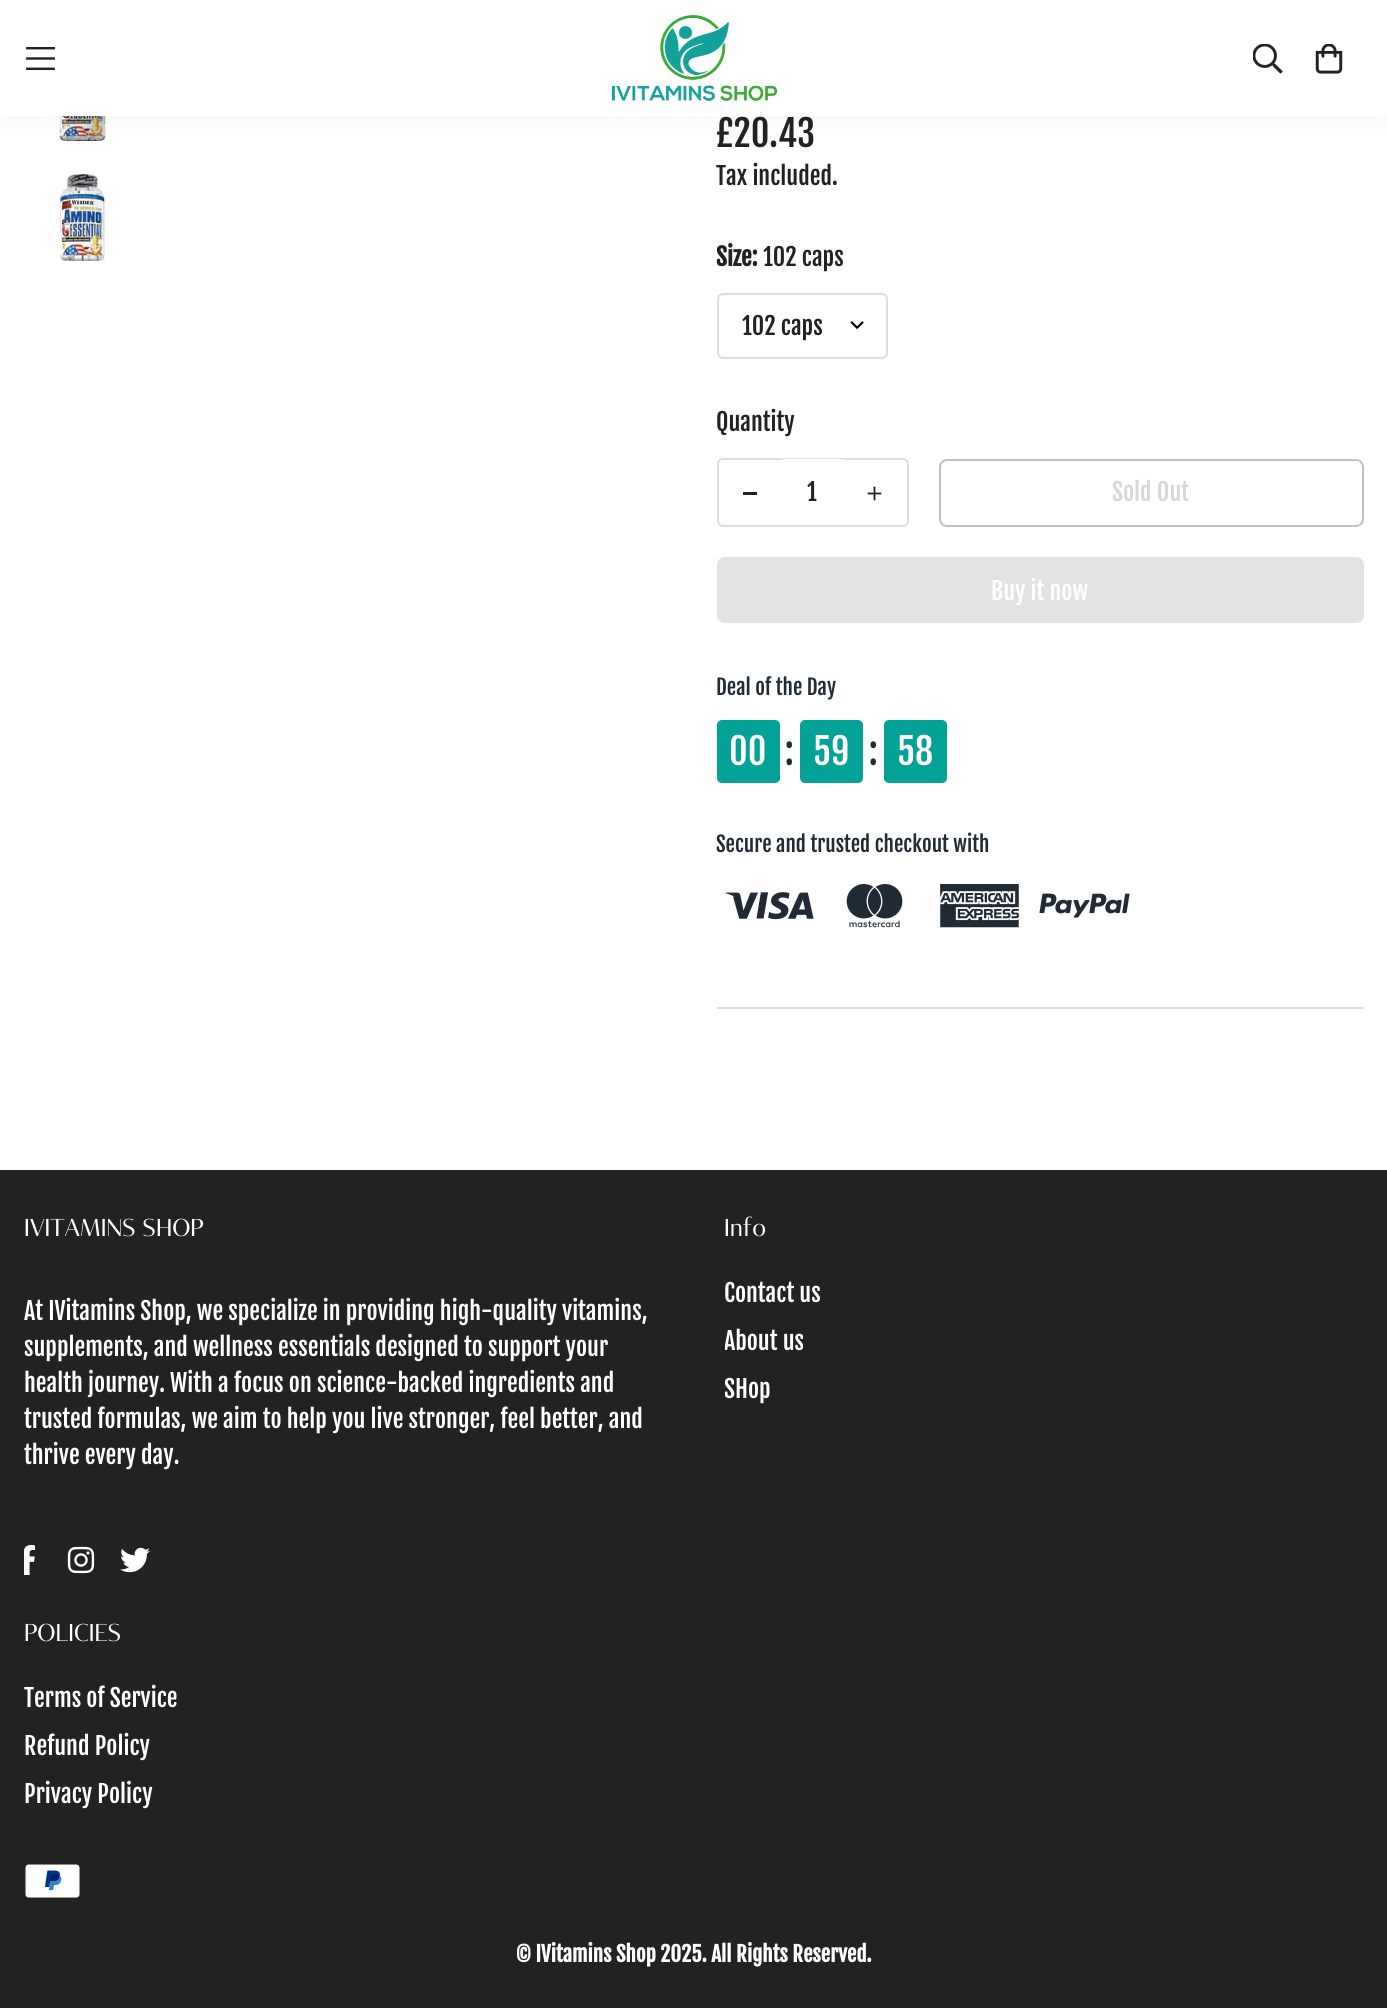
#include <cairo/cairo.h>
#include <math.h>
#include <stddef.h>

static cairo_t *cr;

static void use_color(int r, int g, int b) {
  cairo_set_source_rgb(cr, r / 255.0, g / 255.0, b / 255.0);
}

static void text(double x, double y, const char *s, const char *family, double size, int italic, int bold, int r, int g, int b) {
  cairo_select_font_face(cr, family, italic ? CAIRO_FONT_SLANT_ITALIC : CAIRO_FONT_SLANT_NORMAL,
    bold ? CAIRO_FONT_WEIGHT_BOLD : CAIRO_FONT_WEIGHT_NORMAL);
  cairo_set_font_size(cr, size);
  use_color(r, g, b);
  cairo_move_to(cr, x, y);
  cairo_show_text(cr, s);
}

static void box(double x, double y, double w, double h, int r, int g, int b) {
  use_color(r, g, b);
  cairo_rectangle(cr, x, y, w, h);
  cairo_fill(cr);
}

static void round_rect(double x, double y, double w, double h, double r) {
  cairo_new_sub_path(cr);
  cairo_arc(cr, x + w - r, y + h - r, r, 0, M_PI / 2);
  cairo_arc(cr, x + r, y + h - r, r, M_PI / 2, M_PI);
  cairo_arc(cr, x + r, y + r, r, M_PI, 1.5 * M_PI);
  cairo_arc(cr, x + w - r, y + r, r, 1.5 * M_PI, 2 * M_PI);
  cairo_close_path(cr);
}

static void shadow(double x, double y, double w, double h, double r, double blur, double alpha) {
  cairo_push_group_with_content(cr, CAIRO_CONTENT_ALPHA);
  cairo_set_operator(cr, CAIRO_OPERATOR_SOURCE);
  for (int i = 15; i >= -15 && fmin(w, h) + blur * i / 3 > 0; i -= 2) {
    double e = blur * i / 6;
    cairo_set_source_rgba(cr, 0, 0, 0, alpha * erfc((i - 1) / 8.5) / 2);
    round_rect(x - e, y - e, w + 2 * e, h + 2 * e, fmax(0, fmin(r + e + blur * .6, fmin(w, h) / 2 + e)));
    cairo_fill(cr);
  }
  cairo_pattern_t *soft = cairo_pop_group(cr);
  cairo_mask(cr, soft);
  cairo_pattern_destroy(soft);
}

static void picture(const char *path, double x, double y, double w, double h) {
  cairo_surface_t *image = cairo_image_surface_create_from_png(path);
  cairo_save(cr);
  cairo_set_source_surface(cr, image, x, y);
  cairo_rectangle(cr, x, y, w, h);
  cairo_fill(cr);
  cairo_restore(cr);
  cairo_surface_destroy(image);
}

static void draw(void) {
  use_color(255, 255, 255);
  cairo_paint(cr);
  picture("img_05.png", 58, 116, 48, 25);
  use_color(0, 0, 0);
  shadow(0, 6, 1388, 116, 0, 15, 0.04);
  box(0, 0, 1387, 116, 255, 255, 255);
  picture("img_01.png", 26, 47, 29, 23);
  picture("img_02.png", 612, 15, 165, 86);
  picture("img_03.png", 1253, 44, 30, 30);
  picture("img_04.png", 1315, 44, 28, 30);
  picture("img_06.png", 58, 174, 50, 87);
  picture("img_07.png", 850, 321, 14, 8);
  round_rect(718, 294, 169, 64, 5);
  use_color(222, 222, 222);
  cairo_stroke(cr);
  round_rect(718, 459, 190, 67, 5);
  cairo_stroke(cr);
  box(743, 492, 14, 3, 34, 34, 35);
  box(783, 459, 60, 1, 255, 255, 255);
  picture("img_08.png", 867, 486, 15, 15);
  round_rect(940, 460, 423, 66, 7);
  use_color(193, 193, 193);
  cairo_stroke(cr);
  use_color(227, 227, 228);
  round_rect(718, 558, 645, 64, 7);
  cairo_fill_preserve(cr);
  cairo_stroke(cr);
  use_color(3, 161, 150);
  round_rect(717, 720, 63, 63, 5);
  cairo_fill(cr);
  round_rect(800, 720, 63, 63, 5);
  cairo_fill(cr);
  round_rect(884, 720, 63, 63, 5);
  cairo_fill(cr);
  picture("img_09.png", 725, 892, 89, 28);
  picture("img_10.png", 846, 884, 57, 44);
  picture("img_11.png", 940, 884, 79, 44);
  picture("img_12.png", 1039, 893, 91, 25);
  box(717, 1007, 647, 2, 222, 222, 222);
  box(0, 1170, 1387, 838, 34, 34, 35);
  picture("img_13.png", 24, 1545, 12, 30);
  picture("img_14.png", 67, 1546, 28, 28);
  picture("img_15.png", 120, 1547, 30, 26);
  picture("img_16.png", 25, 1864, 55, 34);
  text(716, 147, "£20.43", "Fjalla One", 36, 0, 0, 34, 34, 35);
  text(716, 185, "Tax included.", "Fjalla One", 24, 0, 0, 34, 34, 35);
  text(716, 266, "Size:", "Fjalla One", 24, 0, 1, 34, 34, 35);
  text(763, 266, "102 caps", "Fjalla One", 24, 0, 0, 34, 34, 35);
  text(742, 335, "102 caps", "Fjalla One", 24, 0, 0, 34, 34, 35);
  text(716, 431, "Quantity", "Fjalla One", 24, 0, 0, 34, 34, 35);
  text(807, 501, "1", "Fjalla One", 24, 0, 0, 34, 34, 35);
  text(1112, 501, "Sold Out", "Fjalla One", 24, 0, 0, 216, 216, 216);
  text(991, 600, "Buy it now", "Fjalla One", 24, 0, 0, 255, 255, 255);
  text(716, 695, "Deal of the Day", "Fjalla One", 21, 0, 0, 33, 43, 53);
  text(729, 765, "00", "Fjalla One", 36, 0, 0, 255, 255, 255);
  text(785, 765, ":", "Fjalla One", 36, 0, 0, 33, 43, 53);
  text(813, 765, "59", "Fjalla One", 36, 0, 0, 255, 255, 255);
  text(869, 765, ":", "Fjalla One", 36, 0, 0, 33, 43, 53);
  text(897, 765, "58", "Fjalla One", 36, 0, 0, 255, 255, 255);
  text(716, 852, "Secure and trusted checkout with", "Fjalla One", 21, 0, 0, 33, 43, 53);
  text(24, 1236, "IVITAMINS SHOP", "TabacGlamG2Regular", 24, 0, 0, 255, 255, 255);
  text(24, 1320, "At IVitamins Shop, we specialize in providing high-quality vitamins,", "Fjalla One", 24, 0, 0, 255, 255, 255);
  text(24, 1356, "supplements, and wellness essentials designed to support your", "Fjalla One", 24, 0, 0, 255, 255, 255);
  text(24, 1392, "health journey. With a focus on science-backed ingredients and", "Fjalla One", 24, 0, 0, 255, 255, 255);
  text(24, 1428, "trusted formulas, we aim to help you live stronger, feel better, and", "Fjalla One", 24, 0, 0, 255, 255, 255);
  text(24, 1464, "thrive every day.", "Fjalla One", 24, 0, 0, 255, 255, 255);
  text(724, 1236, "Info", "TabacGlamG2Regular", 24, 0, 0, 255, 255, 255);
  text(724, 1302, "Contact us", "Fjalla One", 24, 0, 0, 255, 255, 255);
  cairo_save(cr);
  cairo_rectangle(cr, 725, 1269, 639, 144);
  cairo_clip(cr);
  text(724, 1350, "About us", "Fjalla One", 24, 0, 0, 255, 255, 255);
  text(724, 1398, "SHop", "Fjalla One", 24, 0, 0, 255, 255, 255);
  cairo_restore(cr);
  text(24, 1641, "POLICIES", "TabacGlamG2Regular", 24, 0, 0, 255, 255, 255);
  text(24, 1707, "Terms of Service", "Fjalla One", 24, 0, 0, 255, 255, 255);
  text(24, 1755, "Refund Policy", "Fjalla One", 24, 0, 0, 255, 255, 255);
  text(24, 1803, "Privacy Policy", "Fjalla One", 24, 0, 0, 255, 255, 255);
  text(516, 1962, "© IVitamins Shop 2025. All Rights Reserved.", "Fjalla One", 21, 0, 1, 255, 255, 255);
}

int main(void) {
  cairo_surface_t *surface = cairo_image_surface_create(CAIRO_FORMAT_RGB24, 1387, 2008);
  cr = cairo_create(surface);
  cairo_font_options_t *options = cairo_font_options_create();
  cairo_font_options_set_hint_metrics(options, CAIRO_HINT_METRICS_OFF);
  cairo_font_options_set_hint_style(options, CAIRO_HINT_STYLE_NONE);
  cairo_set_font_options(cr, options);
  cairo_set_miter_limit(cr, 4);
  draw();
  cairo_surface_write_to_png(surface, "out.png");
  cairo_font_options_destroy(options);
  cairo_destroy(cr);
  cairo_surface_destroy(surface);
  return 0;
}
